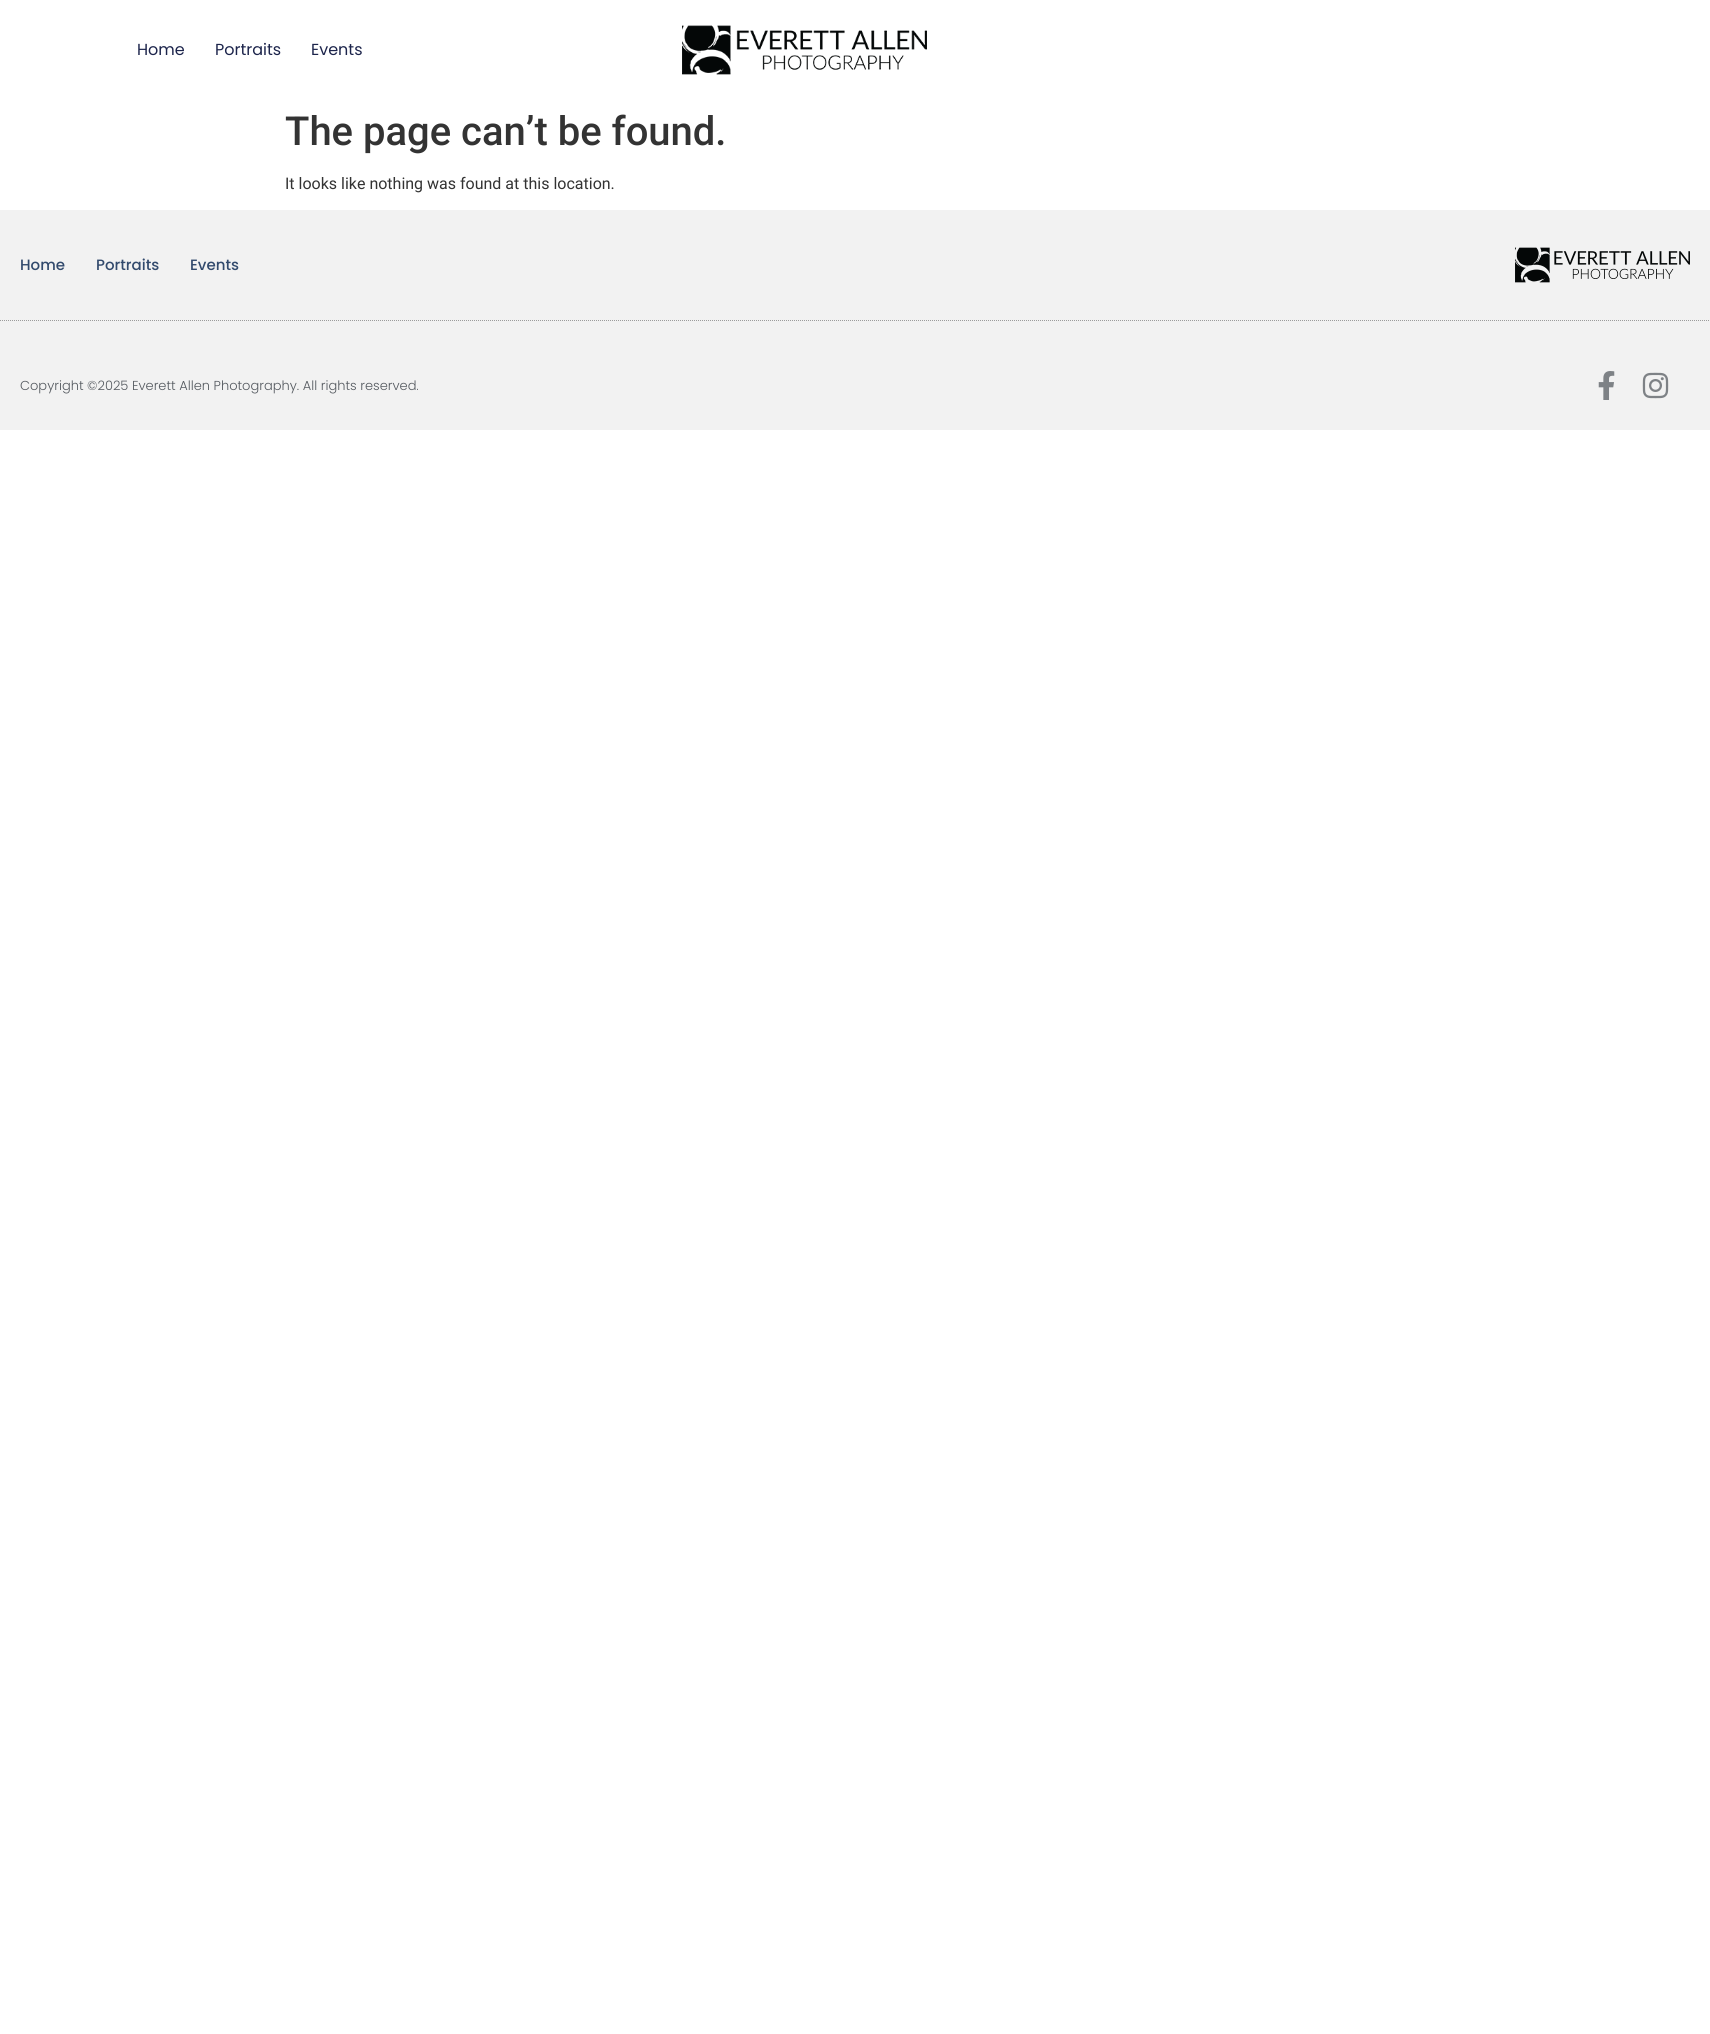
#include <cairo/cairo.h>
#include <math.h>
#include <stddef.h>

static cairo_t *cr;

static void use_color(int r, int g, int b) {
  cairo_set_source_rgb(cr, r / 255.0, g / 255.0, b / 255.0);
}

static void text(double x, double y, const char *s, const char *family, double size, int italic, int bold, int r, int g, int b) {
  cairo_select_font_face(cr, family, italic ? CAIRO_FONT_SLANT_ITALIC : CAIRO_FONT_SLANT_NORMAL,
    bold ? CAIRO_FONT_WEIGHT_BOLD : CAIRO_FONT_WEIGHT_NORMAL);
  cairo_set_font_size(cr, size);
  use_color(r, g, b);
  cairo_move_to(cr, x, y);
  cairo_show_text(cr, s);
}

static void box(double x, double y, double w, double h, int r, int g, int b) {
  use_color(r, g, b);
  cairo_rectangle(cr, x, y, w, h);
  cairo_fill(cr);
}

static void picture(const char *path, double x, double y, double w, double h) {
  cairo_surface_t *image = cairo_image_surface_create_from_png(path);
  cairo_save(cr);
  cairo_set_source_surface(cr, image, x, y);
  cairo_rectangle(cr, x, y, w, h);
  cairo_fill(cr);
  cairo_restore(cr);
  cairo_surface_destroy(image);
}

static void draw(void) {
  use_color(255, 255, 255);
  cairo_paint(cr);
  picture("img_01.png", 682, 25, 245, 50);
  box(0, 210, 1710, 220, 242, 242, 242);
  cairo_new_path(cr);
  cairo_move_to(cr, 0, 320.5);
  cairo_line_to(cr, 1710, 320.5);
  use_color(155, 155, 155);
  cairo_set_line_width(cr, 1);
  cairo_set_dash(cr, (double[]){1, 1}, 2, 0);
  cairo_stroke(cr);
  picture("img_02.png", 1515, 247, 175, 36);
  picture("img_03.png", 1598, 371, 17, 29);
  picture("img_04.png", 1642, 372, 27, 27);
  text(137, 55, "Home", "Poppins", 16, 0, 0, 28, 36, 75);
  text(215, 55, "Portraits", "Poppins", 16, 0, 0, 28, 36, 75);
  text(311, 55, "Events", "Poppins", 16, 0, 0, 28, 36, 75);
  text(285, 145, "The page can’t be found.", "Roboto Medium", 40, 0, 0, 51, 51, 51);
  text(285, 189, "It looks like nothing was found at this location.", "Roboto", 16, 0, 0, 51, 51, 51);
  text(20, 270, "Home", "Poppins Medium", 15, 0, 0, 50, 74, 109);
  text(96, 270, "Portraits", "Poppins Medium", 15, 0, 0, 50, 74, 109);
  text(190, 270, "Events", "Poppins Medium", 15, 0, 0, 50, 74, 109);
  text(20, 390, "Copyright ©2025 Everett Allen Photography. All rights reserved.", "Poppins Light", 13, 0, 0, 84, 89, 95);
}

int main(void) {
  cairo_surface_t *surface = cairo_image_surface_create(CAIRO_FORMAT_RGB24, 1710, 2034);
  cr = cairo_create(surface);
  cairo_font_options_t *options = cairo_font_options_create();
  cairo_font_options_set_hint_metrics(options, CAIRO_HINT_METRICS_OFF);
  cairo_font_options_set_hint_style(options, CAIRO_HINT_STYLE_NONE);
  cairo_set_font_options(cr, options);
  cairo_set_miter_limit(cr, 4);
  draw();
  cairo_surface_write_to_png(surface, "out.png");
  cairo_font_options_destroy(options);
  cairo_destroy(cr);
  cairo_surface_destroy(surface);
  return 0;
}
